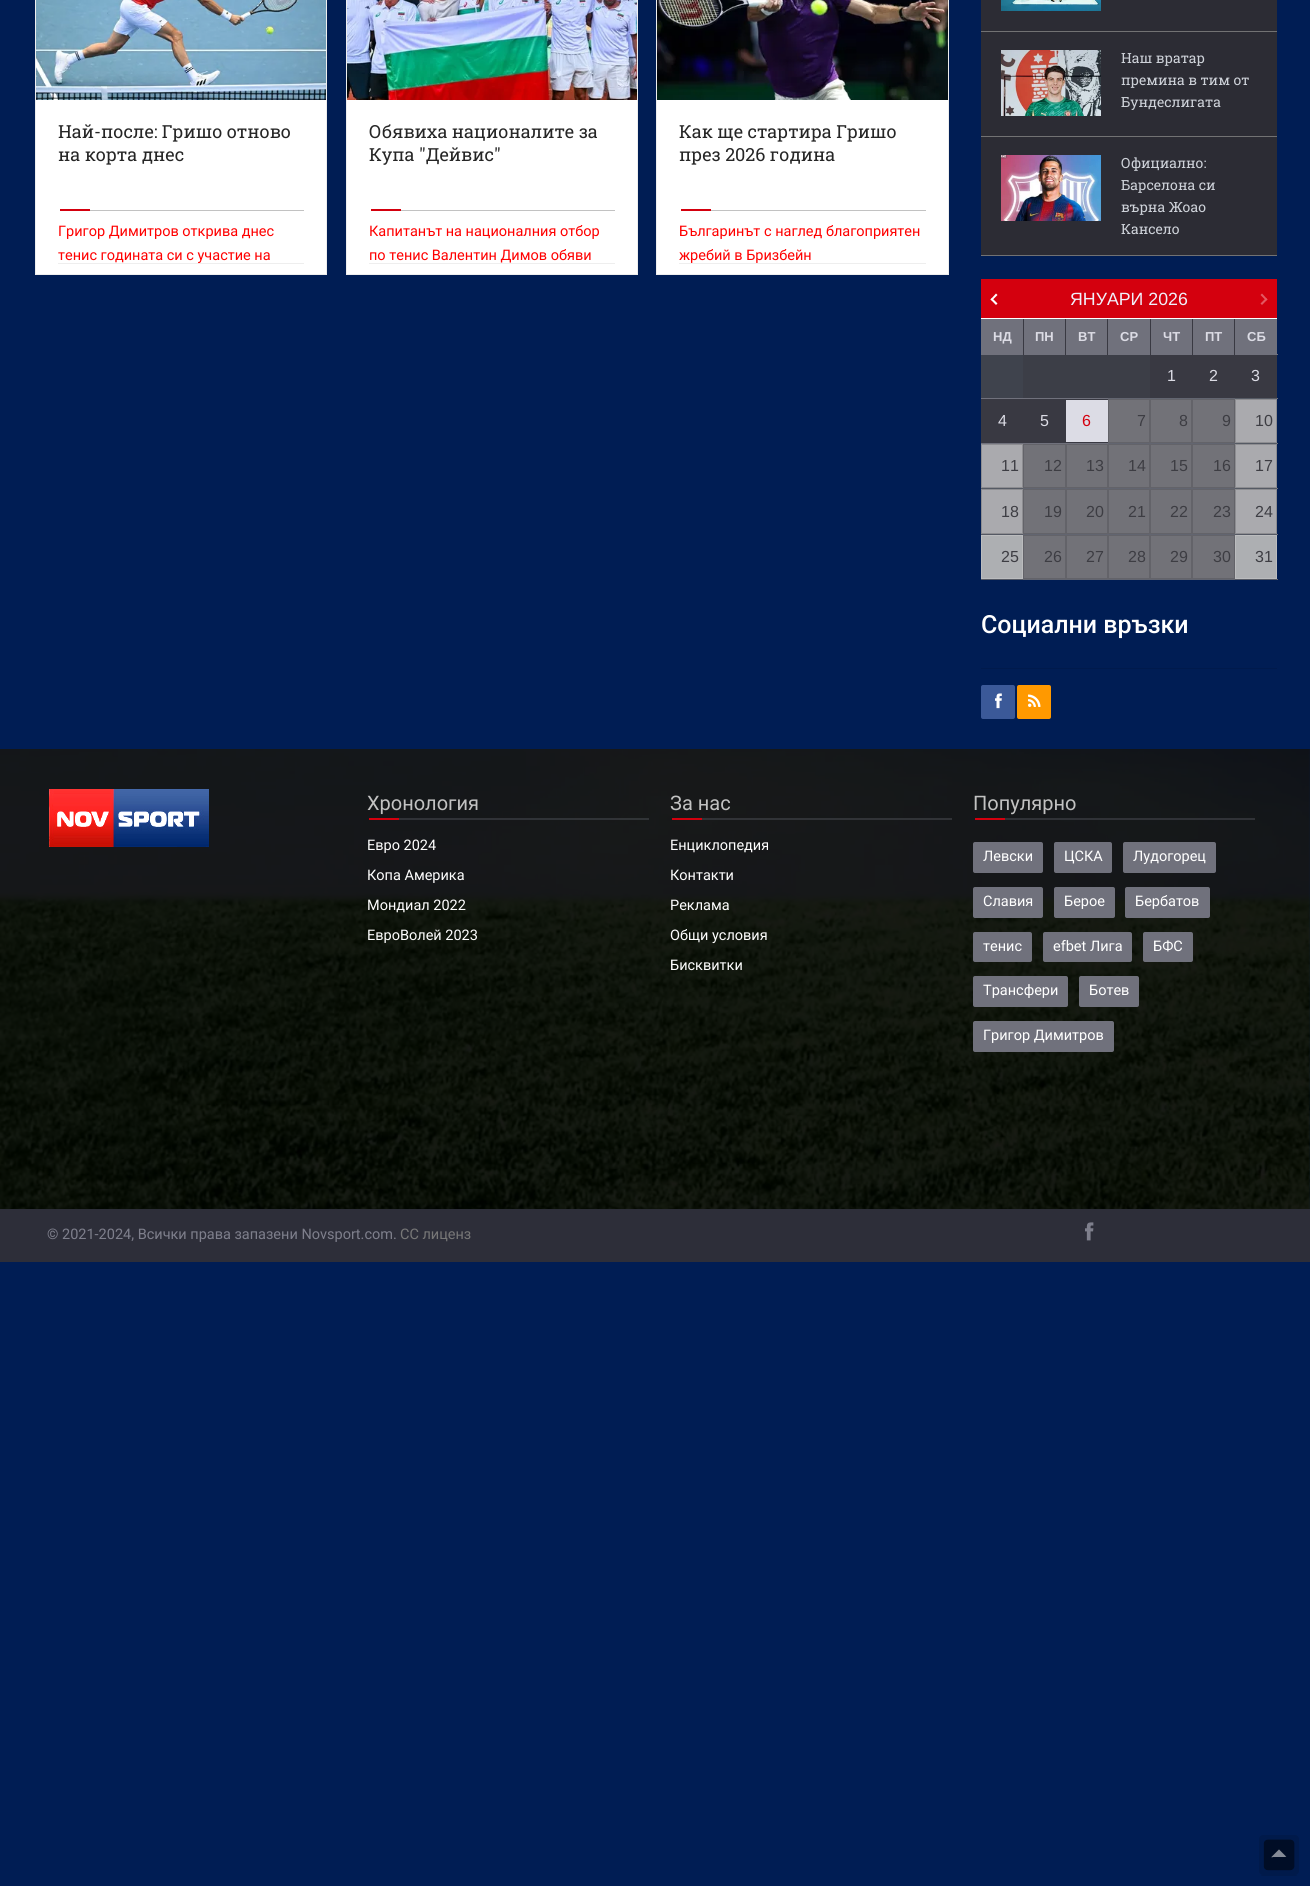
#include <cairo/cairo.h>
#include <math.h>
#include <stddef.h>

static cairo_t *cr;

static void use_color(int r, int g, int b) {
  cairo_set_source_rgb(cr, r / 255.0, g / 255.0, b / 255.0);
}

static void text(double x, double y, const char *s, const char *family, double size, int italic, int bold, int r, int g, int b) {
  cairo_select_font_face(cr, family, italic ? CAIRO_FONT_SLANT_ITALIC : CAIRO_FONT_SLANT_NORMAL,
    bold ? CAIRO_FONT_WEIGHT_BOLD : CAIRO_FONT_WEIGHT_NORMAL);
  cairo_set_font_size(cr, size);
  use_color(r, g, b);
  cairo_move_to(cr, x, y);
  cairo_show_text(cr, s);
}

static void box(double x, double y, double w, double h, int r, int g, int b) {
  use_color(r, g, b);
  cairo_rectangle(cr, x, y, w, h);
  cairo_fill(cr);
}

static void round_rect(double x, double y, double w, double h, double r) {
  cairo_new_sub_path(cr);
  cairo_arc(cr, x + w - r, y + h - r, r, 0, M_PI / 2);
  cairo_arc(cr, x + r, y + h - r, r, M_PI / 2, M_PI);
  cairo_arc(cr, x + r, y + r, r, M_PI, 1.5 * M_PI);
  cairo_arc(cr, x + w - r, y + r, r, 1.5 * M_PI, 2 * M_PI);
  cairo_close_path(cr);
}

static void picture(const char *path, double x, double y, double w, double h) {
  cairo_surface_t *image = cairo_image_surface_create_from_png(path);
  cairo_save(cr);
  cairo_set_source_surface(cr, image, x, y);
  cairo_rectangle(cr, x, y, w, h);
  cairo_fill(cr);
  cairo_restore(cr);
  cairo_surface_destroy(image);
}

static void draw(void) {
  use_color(0, 29, 84);
  cairo_paint(cr);
  box(36, 100, 290, 174, 255, 255, 255);
  cairo_rectangle(cr, 35.5, -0.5, 291, 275);
  use_color(238, 238, 238);
  cairo_set_line_width(cr, 1);
  cairo_stroke(cr);
  picture("img_01.png", 36, 0, 290, 100);
  box(60, 209, 30, 2, 212, 0, 14);
  box(90, 210, 214, 1, 194, 194, 194);
  box(58, 263, 246, 1, 238, 238, 238);
  box(347, 100, 290, 174, 255, 255, 255);
  cairo_rectangle(cr, 346.5, -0.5, 291, 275);
  use_color(238, 238, 238);
  cairo_stroke(cr);
  picture("img_02.png", 347, 0, 290, 100);
  box(371, 209, 30, 2, 212, 0, 14);
  box(401, 210, 214, 1, 194, 194, 194);
  box(369, 263, 246, 1, 238, 238, 238);
  box(657, 100, 291, 174, 255, 255, 255);
  cairo_rectangle(cr, 656.5, -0.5, 292, 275);
  use_color(238, 238, 238);
  cairo_stroke(cr);
  picture("img_03.png", 657, 0, 291, 100);
  box(681, 209, 30, 2, 212, 0, 14);
  box(711, 210, 215, 1, 194, 194, 194);
  box(679, 263, 247, 1, 238, 238, 238);
  box(981, 0, 296, 255, 44, 44, 52);
  box(981, 31, 296, 1, 114, 114, 115);
  picture("img_04.png", 1001, 0, 100, 11);
  box(981, 136, 296, 1, 114, 114, 115);
  picture("img_05.png", 1001, 50, 100, 66);
  box(981, 255, 296, 1, 114, 114, 115);
  picture("img_06.png", 1001, 155, 100, 66);
  box(981, 355, 296, 223, 57, 57, 66);
  box(981, 279, 296, 39, 212, 0, 14);
  use_color(255, 255, 255);
  cairo_new_path(cr);
  cairo_move_to(cr, 990.5, 299.5);
  cairo_line_to(cr, 996, 293.5);
  cairo_line_to(cr, 997.5, 295);
  cairo_line_to(cr, 992, 300.5);
  cairo_close_path(cr);
  cairo_fill(cr);
  cairo_new_path(cr);
  cairo_move_to(cr, 990.5, 299.5);
  cairo_line_to(cr, 992, 298);
  cairo_line_to(cr, 997.5, 303.5);
  cairo_line_to(cr, 996, 305);
  cairo_close_path(cr);
  cairo_fill(cr);
  box(981, 318, 296, 1, 255, 255, 255);
  use_color(227, 89, 98);
  cairo_new_path(cr);
  cairo_move_to(cr, 1262, 293.5);
  cairo_line_to(cr, 1267.5, 299.5);
  cairo_line_to(cr, 1266, 300.5);
  cairo_line_to(cr, 1260.5, 295);
  cairo_close_path(cr);
  cairo_fill(cr);
  cairo_new_path(cr);
  cairo_move_to(cr, 1266, 298);
  cairo_line_to(cr, 1267.5, 299.5);
  cairo_line_to(cr, 1262, 305);
  cairo_line_to(cr, 1260.5, 303.5);
  cairo_close_path(cr);
  cairo_fill(cr);
  box(981, 354, 297, 1, 112, 113, 124);
  box(981, 319, 42, 35, 112, 113, 124);
  box(1023, 319, 1, 36, 57, 57, 66);
  box(1024, 319, 41, 35, 112, 113, 124);
  box(1065, 319, 1, 36, 57, 57, 66);
  box(1066, 319, 41, 35, 112, 113, 124);
  box(1107, 319, 1, 36, 57, 57, 66);
  box(1108, 319, 42, 35, 112, 113, 124);
  box(1150, 319, 1, 36, 57, 57, 66);
  box(1151, 319, 41, 35, 112, 113, 124);
  box(1192, 319, 1, 36, 57, 57, 66);
  box(1193, 319, 41, 35, 112, 113, 124);
  box(1234, 319, 1, 36, 57, 57, 66);
  box(1235, 319, 42, 35, 112, 113, 124);
  box(981, 398, 297, 1, 112, 113, 124);
  box(1235, 398, 42, 1, 85, 90, 100);
  box(1108, 398, 127, 1, 98, 101, 112);
  box(981, 355, 42, 43, 63, 67, 77);
  box(1023, 355, 127, 43, 60, 62, 71);
  box(981, 443, 297, 1, 112, 113, 124);
  box(1235, 443, 42, 1, 85, 90, 100);
  box(1108, 443, 127, 1, 98, 101, 112);
  box(1066, 400, 42, 42, 220, 220, 229);
  use_color(114, 114, 120);
  cairo_rectangle(cr, 1108.5, 399.5, 41, 43);
  cairo_fill_preserve(cr);
  use_color(99, 99, 105);
  cairo_stroke(cr);
  use_color(114, 114, 120);
  cairo_rectangle(cr, 1150.5, 399.5, 41, 43);
  cairo_fill_preserve(cr);
  use_color(99, 99, 105);
  cairo_stroke(cr);
  use_color(114, 114, 120);
  cairo_rectangle(cr, 1192.5, 399.5, 42, 43);
  cairo_fill_preserve(cr);
  use_color(99, 99, 105);
  cairo_stroke(cr);
  use_color(170, 170, 174);
  cairo_rectangle(cr, 1235.5, 399.5, 41, 43);
  cairo_fill_preserve(cr);
  use_color(141, 141, 145);
  cairo_stroke(cr);
  box(1277, 488, 1, 1, 112, 113, 124);
  box(1235, 488, 42, 1, 85, 90, 100);
  box(1023, 488, 212, 1, 98, 101, 112);
  box(981, 488, 42, 1, 85, 90, 100);
  use_color(170, 170, 174);
  cairo_rectangle(cr, 981.5, 444.5, 41, 43);
  cairo_fill_preserve(cr);
  use_color(141, 141, 145);
  cairo_stroke(cr);
  use_color(114, 114, 120);
  cairo_rectangle(cr, 1023.5, 444.5, 42, 43);
  cairo_fill_preserve(cr);
  use_color(99, 99, 105);
  cairo_stroke(cr);
  use_color(114, 114, 120);
  cairo_rectangle(cr, 1066.5, 444.5, 41, 43);
  cairo_fill_preserve(cr);
  use_color(99, 99, 105);
  cairo_stroke(cr);
  use_color(114, 114, 120);
  cairo_rectangle(cr, 1108.5, 444.5, 41, 43);
  cairo_fill_preserve(cr);
  use_color(99, 99, 105);
  cairo_stroke(cr);
  use_color(114, 114, 120);
  cairo_rectangle(cr, 1150.5, 444.5, 41, 43);
  cairo_fill_preserve(cr);
  use_color(99, 99, 105);
  cairo_stroke(cr);
  use_color(114, 114, 120);
  cairo_rectangle(cr, 1192.5, 444.5, 42, 43);
  cairo_fill_preserve(cr);
  use_color(99, 99, 105);
  cairo_stroke(cr);
  use_color(170, 170, 174);
  cairo_rectangle(cr, 1235.5, 444.5, 41, 43);
  cairo_fill_preserve(cr);
  use_color(141, 141, 145);
  cairo_stroke(cr);
  box(981, 534, 297, 1, 112, 113, 124);
  box(1023, 534, 212, 1, 98, 101, 112);
  use_color(170, 170, 174);
  cairo_rectangle(cr, 981.5, 489.5, 41, 44);
  cairo_fill_preserve(cr);
  use_color(141, 141, 145);
  cairo_stroke(cr);
  use_color(114, 114, 120);
  cairo_rectangle(cr, 1023.5, 489.5, 42, 44);
  cairo_fill_preserve(cr);
  use_color(99, 99, 105);
  cairo_stroke(cr);
  use_color(114, 114, 120);
  cairo_rectangle(cr, 1066.5, 489.5, 41, 44);
  cairo_fill_preserve(cr);
  use_color(99, 99, 105);
  cairo_stroke(cr);
  use_color(114, 114, 120);
  cairo_rectangle(cr, 1108.5, 489.5, 41, 44);
  cairo_fill_preserve(cr);
  use_color(99, 99, 105);
  cairo_stroke(cr);
  use_color(114, 114, 120);
  cairo_rectangle(cr, 1150.5, 489.5, 41, 44);
  cairo_fill_preserve(cr);
  use_color(99, 99, 105);
  cairo_stroke(cr);
  use_color(114, 114, 120);
  cairo_rectangle(cr, 1192.5, 489.5, 42, 44);
  cairo_fill_preserve(cr);
  use_color(99, 99, 105);
  cairo_stroke(cr);
  use_color(170, 170, 174);
  cairo_rectangle(cr, 1235.5, 489.5, 41, 44);
  cairo_fill_preserve(cr);
  use_color(141, 141, 145);
  cairo_stroke(cr);
  box(981, 579, 297, 1, 112, 113, 124);
  box(1023, 579, 212, 1, 98, 101, 112);
  cairo_set_source_rgba(cr, 0.263, 0.29, 0.329, 0.6);
  cairo_rectangle(cr, 981, 534, 42, 46);
  cairo_fill(cr);
  cairo_set_source_rgba(cr, 0.965, 0.965, 0.965, 0.6);
  cairo_rectangle(cr, 981.5, 535.5, 41, 43);
  cairo_fill_preserve(cr);
  use_color(187, 188, 190);
  cairo_stroke(cr);
  use_color(114, 114, 120);
  cairo_rectangle(cr, 1023.5, 535.5, 42, 43);
  cairo_fill_preserve(cr);
  use_color(99, 99, 105);
  cairo_stroke(cr);
  use_color(114, 114, 120);
  cairo_rectangle(cr, 1066.5, 535.5, 41, 43);
  cairo_fill_preserve(cr);
  use_color(99, 99, 105);
  cairo_stroke(cr);
  use_color(114, 114, 120);
  cairo_rectangle(cr, 1108.5, 535.5, 41, 43);
  cairo_fill_preserve(cr);
  use_color(99, 99, 105);
  cairo_stroke(cr);
  use_color(114, 114, 120);
  cairo_rectangle(cr, 1150.5, 535.5, 41, 43);
  cairo_fill_preserve(cr);
  use_color(99, 99, 105);
  cairo_stroke(cr);
  use_color(114, 114, 120);
  cairo_rectangle(cr, 1192.5, 535.5, 42, 43);
  cairo_fill_preserve(cr);
  use_color(99, 99, 105);
  cairo_stroke(cr);
  cairo_set_source_rgba(cr, 0.263, 0.29, 0.329, 0.6);
  cairo_rectangle(cr, 1235, 534, 42, 46);
  cairo_fill(cr);
  cairo_set_source_rgba(cr, 0.965, 0.965, 0.965, 0.6);
  cairo_rectangle(cr, 1235.5, 535.5, 41, 43);
  cairo_fill_preserve(cr);
  use_color(187, 188, 190);
  cairo_stroke(cr);
  box(981, 668, 296, 1, 0, 26, 76);
  use_color(59, 89, 152);
  round_rect(981, 685, 34, 34, 2);
  cairo_fill(cr);
  picture("img_07.png", 995, 693, 7, 16);
  use_color(255, 153, 0);
  round_rect(1017, 685, 34, 34, 2);
  cairo_fill(cr);
  picture("img_08.png", 1028, 694, 13, 13);
  picture("img_09.png", 0, 749, 1310, 460);
  picture("img_10.png", 49, 789, 160, 58);
  box(369, 818, 30, 2, 212, 0, 14);
  cairo_set_source_rgba(cr, 0.439, 0.443, 0.486, 0.3);
  cairo_rectangle(cr, 399, 818, 250, 2);
  cairo_fill(cr);
  box(672, 818, 30, 2, 212, 0, 14);
  box(702, 818, 250, 2, 49, 51, 55);
  box(975, 818, 30, 2, 212, 0, 14);
  box(1005, 818, 250, 2, 48, 50, 55);
  use_color(112, 113, 124);
  round_rect(973, 842, 70, 31, 2);
  cairo_fill(cr);
  round_rect(1054, 842, 58, 31, 2);
  cairo_fill(cr);
  round_rect(1123, 842, 93, 31, 2);
  cairo_fill(cr);
  round_rect(973, 887, 70, 31, 2);
  cairo_fill(cr);
  round_rect(1054, 887, 61, 31, 2);
  cairo_fill(cr);
  round_rect(1125, 887, 85, 31, 2);
  cairo_fill(cr);
  round_rect(973, 932, 59, 30, 2);
  cairo_fill(cr);
  round_rect(1043, 932, 89, 30, 2);
  cairo_fill(cr);
  round_rect(1143, 932, 50, 30, 2);
  cairo_fill(cr);
  round_rect(973, 976, 95, 31, 2);
  cairo_fill(cr);
  round_rect(1079, 976, 60, 31, 2);
  cairo_fill(cr);
  round_rect(973, 1021, 141, 31, 2);
  cairo_fill(cr);
  box(0, 1209, 1310, 53, 45, 46, 57);
  picture("img_11.png", 1085, 1222, 9, 19);
  picture("img_12.png", 1259, 1835, 40, 41);
  text(58, 138, "Най-после: Гришо отново", "Roboto Slab", 18, 0, 0, 38, 38, 38);
  text(58, 161, "на корта днес", "Roboto Slab", 18, 0, 0, 38, 38, 38);
  text(58, 236, "Григор Димитров открива днес", "Roboto", 14.5, 0, 0, 255, 0, 0);
  text(58, 260, "тенис годината си с участие на", "Roboto", 14.5, 0, 0, 255, 0, 0);
  text(369, 138, "Обявиха националите за", "Roboto Slab", 18, 0, 0, 38, 38, 38);
  text(369, 161, "Купа \"Дейвис\"", "Roboto Slab", 18, 0, 0, 38, 38, 38);
  text(369, 236, "Капитанът на националния отбор", "Roboto", 14.5, 0, 0, 255, 0, 0);
  text(369, 260, "по тенис Валентин Димов обяви", "Roboto", 14.5, 0, 0, 255, 0, 0);
  text(679, 138, "Как ще стартира Гришо", "Roboto Slab", 18, 0, 0, 38, 38, 38);
  text(679, 161, "през 2026 година", "Roboto Slab", 18, 0, 0, 38, 38, 38);
  text(679, 236, "Българинът с наглед благоприятен", "Roboto", 14.5, 0, 0, 255, 0, 0);
  text(679, 260, "жребий в Бризбейн", "Roboto", 14.5, 0, 0, 255, 0, 0);
  text(1121, 63, "Наш вратар", "Roboto Slab", 14, 0, 0, 206, 210, 217);
  text(1121, 85, "премина в тим от", "Roboto Slab", 14, 0, 0, 206, 210, 217);
  text(1121, 107, "Бундеслигата", "Roboto Slab", 14, 0, 0, 206, 210, 217);
  text(1121, 168, "Официално:", "Roboto Slab", 14, 0, 0, 206, 210, 217);
  text(1121, 190, "Барселона си", "Roboto Slab", 14, 0, 0, 206, 210, 217);
  text(1121, 212, "върна Жоао", "Roboto Slab", 14, 0, 0, 206, 210, 217);
  text(1121, 234, "Кансело", "Roboto Slab", 14, 0, 0, 206, 210, 217);
  text(1070, 305, "ЯНУАРИ 2026", "Liberation Sans", 17.75, 0, 0, 240, 240, 250);
  text(993, 341, "НД", "Liberation Sans", 13, 0, 1, 220, 220, 229);
  text(1035, 341, "ПН", "Liberation Sans", 13, 0, 1, 220, 220, 229);
  text(1078, 341, "ВТ", "Liberation Sans", 13, 0, 1, 220, 220, 229);
  text(1120, 341, "СР", "Liberation Sans", 13, 0, 1, 220, 220, 229);
  text(1163, 341, "ЧТ", "Liberation Sans", 13, 0, 1, 220, 220, 229);
  text(1205, 341, "ПТ", "Liberation Sans", 13, 0, 1, 220, 220, 229);
  text(1247, 341, "СБ", "Liberation Sans", 13, 0, 1, 220, 220, 229);
  text(1167, 381, "1", "Liberation Sans", 16, 0, 0, 220, 220, 229);
  text(1209, 381, "2", "Liberation Sans", 16, 0, 0, 220, 220, 229);
  text(1251, 381, "3", "Liberation Sans", 16, 0, 0, 220, 220, 229);
  text(998, 426, "4", "Liberation Sans", 16, 0, 0, 220, 220, 229);
  text(1040, 426, "5", "Liberation Sans", 16, 0, 0, 220, 220, 229);
  text(1082, 426, "6", "Liberation Sans", 16, 0, 0, 212, 0, 14);
  text(1137, 426, "7", "Liberation Sans", 16, 0, 0, 61, 61, 67);
  text(1179, 426, "8", "Liberation Sans", 16, 0, 0, 61, 61, 67);
  text(1222, 426, "9", "Liberation Sans", 16, 0, 0, 61, 61, 67);
  text(1255, 426, "10", "Liberation Sans", 16, 0, 0, 61, 61, 67);
  text(1001, 471, "11", "Liberation Sans", 16, 0, 0, 61, 61, 67);
  text(1044, 471, "12", "Liberation Sans", 16, 0, 0, 61, 61, 67);
  text(1086, 471, "13", "Liberation Sans", 16, 0, 0, 61, 61, 67);
  text(1128, 471, "14", "Liberation Sans", 16, 0, 0, 61, 61, 67);
  text(1170, 471, "15", "Liberation Sans", 16, 0, 0, 61, 61, 67);
  text(1213, 471, "16", "Liberation Sans", 16, 0, 0, 61, 61, 67);
  text(1255, 471, "17", "Liberation Sans", 16, 0, 0, 61, 61, 67);
  text(1001, 517, "18", "Liberation Sans", 16, 0, 0, 61, 61, 67);
  text(1044, 517, "19", "Liberation Sans", 16, 0, 0, 61, 61, 67);
  text(1086, 517, "20", "Liberation Sans", 16, 0, 0, 61, 61, 67);
  text(1128, 517, "21", "Liberation Sans", 16, 0, 0, 61, 61, 67);
  text(1170, 517, "22", "Liberation Sans", 16, 0, 0, 61, 61, 67);
  text(1213, 517, "23", "Liberation Sans", 16, 0, 0, 61, 61, 67);
  text(1255, 517, "24", "Liberation Sans", 16, 0, 0, 61, 61, 67);
  text(1001, 562, "25", "Liberation Sans", 16, 0, 0, 61, 61, 67);
  text(1044, 562, "26", "Liberation Sans", 16, 0, 0, 61, 61, 67);
  text(1086, 562, "27", "Liberation Sans", 16, 0, 0, 61, 61, 67);
  text(1128, 562, "28", "Liberation Sans", 16, 0, 0, 61, 61, 67);
  text(1170, 562, "29", "Liberation Sans", 16, 0, 0, 61, 61, 67);
  text(1213, 562, "30", "Liberation Sans", 16, 0, 0, 61, 61, 67);
  text(1255, 562, "31", "Liberation Sans", 16, 0, 0, 61, 61, 67);
  text(981, 633, "Социални връзки", "Roboto Medium", 25, 0, 0, 255, 255, 255);
  text(367, 810, "Хронология", "Roboto", 20, 0, 0, 194, 194, 194);
  text(367, 850, "Евро 2024", "Roboto", 14.5, 0, 0, 255, 255, 255);
  text(367, 880, "Копа Америка", "Roboto", 14.5, 0, 0, 255, 255, 255);
  text(367, 910, "Мондиал 2022", "Roboto", 14.5, 0, 0, 255, 255, 255);
  text(367, 940, "ЕвроВолей 2023", "Roboto", 14.5, 0, 0, 255, 255, 255);
  text(670, 810, "За нас", "Roboto", 20, 0, 0, 194, 194, 194);
  text(670, 850, "Енциклопедия", "Roboto", 14.5, 0, 0, 255, 255, 255);
  text(670, 880, "Контакти", "Roboto", 14.5, 0, 0, 255, 255, 255);
  text(670, 910, "Реклама", "Roboto", 14.5, 0, 0, 255, 255, 255);
  text(670, 940, "Общи условия", "Roboto", 14.5, 0, 0, 255, 255, 255);
  text(670, 970, "Бисквитки", "Roboto", 14.5, 0, 0, 255, 255, 255);
  text(973, 810, "Популярно", "Roboto", 20, 0, 0, 194, 194, 194);
  text(983, 861, "Левски", "Roboto", 14.5, 0, 0, 255, 255, 255);
  text(1064, 861, "ЦСКА", "Roboto", 14.5, 0, 0, 255, 255, 255);
  text(1133, 861, "Лудогорец", "Roboto", 14.5, 0, 0, 255, 255, 255);
  text(983, 906, "Славия", "Roboto", 14.5, 0, 0, 255, 255, 255);
  text(1064, 906, "Берое", "Roboto", 14.5, 0, 0, 255, 255, 255);
  text(1135, 906, "Бербатов", "Roboto", 14.5, 0, 0, 255, 255, 255);
  text(983, 951, "тенис", "Roboto", 14.5, 0, 0, 255, 255, 255);
  text(1053, 951, "efbet Лига", "Roboto", 14.5, 0, 0, 255, 255, 255);
  text(1153, 951, "БФС", "Roboto", 14.5, 0, 0, 255, 255, 255);
  text(983, 995, "Трансфери", "Roboto", 14.5, 0, 0, 255, 255, 255);
  text(1089, 995, "Ботев", "Roboto", 14.5, 0, 0, 255, 255, 255);
  text(983, 1040, "Григор Димитров", "Roboto", 14.5, 0, 0, 255, 255, 255);
  text(47, 1239, "© 2021-2024, Всички права запазени Novsport.com.", "Roboto", 14.5, 0, 0, 126, 127, 140);
  text(400, 1239, "CC лиценз", "Roboto", 14.5, 0, 0, 119, 119, 119);
}

int main(void) {
  cairo_surface_t *surface = cairo_image_surface_create(CAIRO_FORMAT_RGB24, 1310, 1886);
  cr = cairo_create(surface);
  cairo_font_options_t *options = cairo_font_options_create();
  cairo_font_options_set_hint_metrics(options, CAIRO_HINT_METRICS_OFF);
  cairo_font_options_set_hint_style(options, CAIRO_HINT_STYLE_NONE);
  cairo_set_font_options(cr, options);
  cairo_set_miter_limit(cr, 4);
  draw();
  cairo_surface_write_to_png(surface, "out.png");
  cairo_font_options_destroy(options);
  cairo_destroy(cr);
  cairo_surface_destroy(surface);
  return 0;
}
